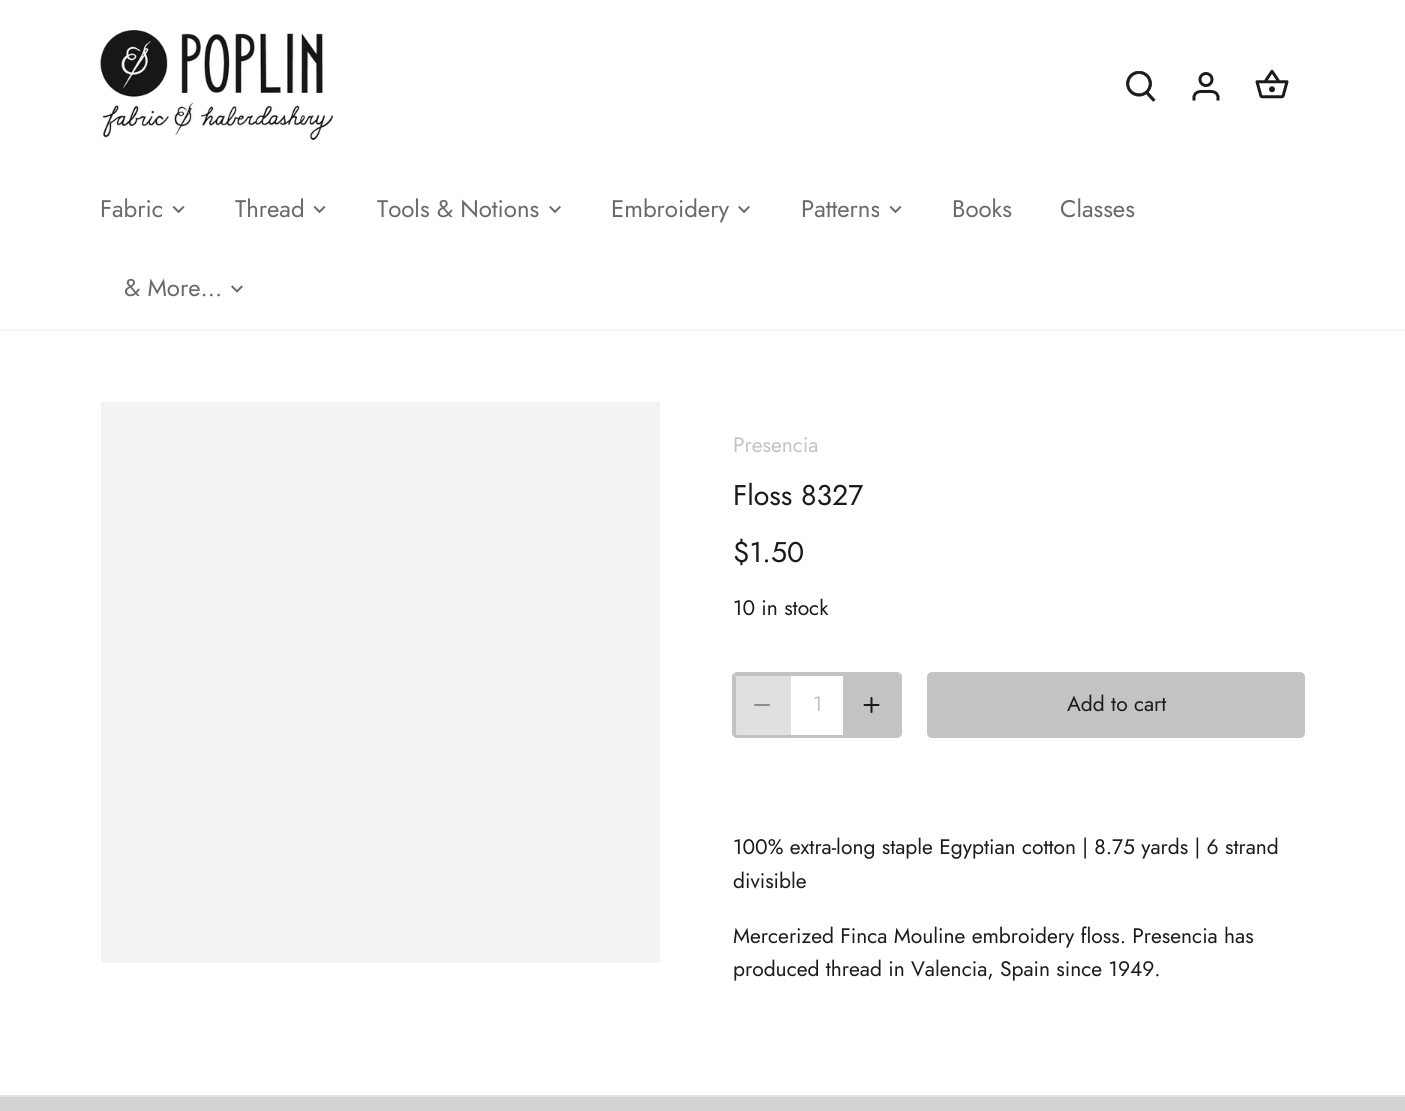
#include <cairo/cairo.h>
#include <math.h>
#include <stddef.h>

static cairo_t *cr;

static void use_color(int r, int g, int b) {
  cairo_set_source_rgb(cr, r / 255.0, g / 255.0, b / 255.0);
}

static void text(double x, double y, const char *s, const char *family, double size, int italic, int bold, int r, int g, int b) {
  cairo_select_font_face(cr, family, italic ? CAIRO_FONT_SLANT_ITALIC : CAIRO_FONT_SLANT_NORMAL,
    bold ? CAIRO_FONT_WEIGHT_BOLD : CAIRO_FONT_WEIGHT_NORMAL);
  cairo_set_font_size(cr, size);
  use_color(r, g, b);
  cairo_move_to(cr, x, y);
  cairo_show_text(cr, s);
}

static void box(double x, double y, double w, double h, int r, int g, int b) {
  use_color(r, g, b);
  cairo_rectangle(cr, x, y, w, h);
  cairo_fill(cr);
}

static void round_rect(double x, double y, double w, double h, double r) {
  cairo_new_sub_path(cr);
  cairo_arc(cr, x + w - r, y + h - r, r, 0, M_PI / 2);
  cairo_arc(cr, x + r, y + h - r, r, M_PI / 2, M_PI);
  cairo_arc(cr, x + r, y + r, r, M_PI, 1.5 * M_PI);
  cairo_arc(cr, x + w - r, y + r, r, 1.5 * M_PI, 2 * M_PI);
  cairo_close_path(cr);
}

static void shadow(double x, double y, double w, double h, double r, double blur, double alpha) {
  cairo_push_group_with_content(cr, CAIRO_CONTENT_ALPHA);
  cairo_set_operator(cr, CAIRO_OPERATOR_SOURCE);
  for (int i = 15; i >= -15 && fmin(w, h) + blur * i / 3 > 0; i -= 2) {
    double e = blur * i / 6;
    cairo_set_source_rgba(cr, 0, 0, 0, alpha * erfc((i - 1) / 8.5) / 2);
    round_rect(x - e, y - e, w + 2 * e, h + 2 * e, fmax(0, fmin(r + e + blur * .6, fmin(w, h) / 2 + e)));
    cairo_fill(cr);
  }
  cairo_pattern_t *soft = cairo_pop_group(cr);
  cairo_mask(cr, soft);
  cairo_pattern_destroy(soft);
}

static void picture(const char *path, double x, double y, double w, double h) {
  cairo_surface_t *image = cairo_image_surface_create_from_png(path);
  cairo_save(cr);
  cairo_set_source_surface(cr, image, x, y);
  cairo_rectangle(cr, x, y, w, h);
  cairo_fill(cr);
  cairo_restore(cr);
  cairo_surface_destroy(image);
}

static void draw(void) {
  use_color(211, 211, 211);
  cairo_paint(cr);
  box(0, 329, 1405, 766, 255, 255, 255);
  use_color(0, 0, 0);
  shadow(-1, -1, 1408, 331, 0, 2, 0.08);
  box(0, 0, 1405, 329, 255, 255, 255);
  picture("img_01.png", 100, 30, 233, 110);
  picture("img_02.png", 1126, 71, 30, 31);
  cairo_arc(cr, 1206, 79.5, 6, 0, 2 * M_PI);
  use_color(27, 27, 27);
  cairo_set_line_width(cr, 3);
  cairo_stroke(cr);
  cairo_new_path(cr);
  cairo_move_to(cr, 1218, 100.5);
  cairo_line_to(cr, 1218, 96.5);
  cairo_curve_to(cr, 1216.5, 90.5, 1210.5, 91.5, 1206, 91.5);
  cairo_curve_to(cr, 1201.5, 91.5, 1195.5, 90.5, 1194, 96.5);
  cairo_line_to(cr, 1194, 100.5);
  cairo_stroke(cr);
  picture("img_03.png", 1255, 69, 34, 30);
  picture("img_04.png", 172, 206, 13, 8);
  picture("img_04.png", 313, 206, 13, 8);
  picture("img_05.png", 549, 206, 12, 8);
  picture("img_05.png", 738, 206, 12, 8);
  picture("img_04.png", 889, 206, 13, 8);
  picture("img_06.png", 231, 285, 12, 8);
  box(101, 402, 559, 561, 243, 243, 243);
  round_rect(735, 675, 164, 61, 2);
  use_color(195, 195, 195);
  cairo_set_line_width(cr, 2);
  cairo_stroke(cr);
  round_rect(733, 673, 168, 64, 4);
  cairo_stroke(cr);
  cairo_set_source_rgba(cr, 0.765, 0.765, 0.765, 0.5);
  cairo_new_path(cr);
  cairo_move_to(cr, 739, 674);
  cairo_line_to(cr, 791, 674);
  cairo_line_to(cr, 791, 737);
  cairo_line_to(cr, 739, 737);
  cairo_curve_to(cr, 736, 737, 734, 735, 734, 732);
  cairo_line_to(cr, 734, 679);
  cairo_curve_to(cr, 734, 676, 736, 674, 739, 674);
  cairo_close_path(cr);
  cairo_fill(cr);
  cairo_new_path(cr);
  cairo_move_to(cr, 755, 705);
  cairo_line_to(cr, 769, 705);
  use_color(141, 141, 141);
  cairo_set_line_cap(cr, CAIRO_LINE_CAP_ROUND);
  cairo_set_line_join(cr, CAIRO_LINE_JOIN_ROUND);
  cairo_stroke(cr);
  use_color(195, 195, 195);
  cairo_new_path(cr);
  cairo_move_to(cr, 843, 674);
  cairo_line_to(cr, 895, 674);
  cairo_curve_to(cr, 898, 674, 900, 676, 900, 679);
  cairo_line_to(cr, 900, 732);
  cairo_curve_to(cr, 900, 735, 898, 737, 895, 737);
  cairo_line_to(cr, 843, 737);
  cairo_close_path(cr);
  cairo_fill(cr);
  cairo_new_path(cr);
  cairo_move_to(cr, 871.5, 698);
  cairo_line_to(cr, 871.5, 712);
  cairo_move_to(cr, 864.5, 705);
  cairo_line_to(cr, 878.5, 705);
  use_color(27, 27, 27);
  cairo_stroke(cr);
  use_color(195, 195, 195);
  round_rect(928.5, 673.5, 375, 63, 3.5);
  cairo_fill_preserve(cr);
  cairo_set_line_width(cr, 3);
  cairo_set_line_cap(cr, CAIRO_LINE_CAP_BUTT);
  cairo_set_line_join(cr, CAIRO_LINE_JOIN_MITER);
  cairo_stroke(cr);
  box(0, 1095, 1405, 2, 227, 227, 227);
  text(100, 217, "Fabric", "Jost", 24, 0, 0, 105, 105, 105);
  text(235, 217, "Thread", "Jost", 24, 0, 0, 105, 105, 105);
  text(377, 217, "Tools & Notions", "Jost", 24, 0, 0, 105, 105, 105);
  text(611, 217, "Embroidery", "Jost", 24, 0, 0, 105, 105, 105);
  text(801, 217, "Patterns", "Jost", 24, 0, 0, 105, 105, 105);
  text(952, 217, "Books", "Jost", 24, 0, 0, 105, 105, 105);
  text(1060, 217, "Classes", "Jost", 24, 0, 0, 105, 105, 105);
  text(124, 296, "& More...", "Jost", 24, 0, 0, 105, 105, 105);
  text(733, 452, "Presencia", "Jost", 21, 0, 0, 195, 195, 195);
  text(733, 505, "Floss 8327", "Jost", 28.5, 0, 0, 27, 27, 27);
  text(733, 562, "$1.50", "Jost", 28.5, 0, 0, 27, 27, 27);
  text(733, 615, "10 in stock", "Jost", 21, 0, 0, 27, 27, 27);
  text(813, 711, "1", "Jost", 21, 0, 0, 195, 195, 195);
  text(1067, 711, "Add to cart", "Jost", 21, 0, 0, 27, 27, 27);
  cairo_new_path(cr);
  cairo_move_to(cr, 1109.5, 698.5);
  cairo_curve_to(cr, 1113, 695, 1119, 695, 1122.5, 698.5);
  use_color(195, 195, 195);
  cairo_stroke(cr);
  text(733, 854, "100% extra-long staple Egyptian cotton | 8.75 yards | 6 strand", "Jost", 21, 0, 0, 27, 27, 27);
  text(733, 888, "divisible", "Jost", 21, 0, 0, 27, 27, 27);
  text(733, 943, "Mercerized Finca Mouline embroidery floss. Presencia has", "Jost", 21, 0, 0, 27, 27, 27);
  text(733, 976, "produced thread in Valencia, Spain since 1949.", "Jost", 21, 0, 0, 27, 27, 27);
}

int main(void) {
  cairo_surface_t *surface = cairo_image_surface_create(CAIRO_FORMAT_RGB24, 1405, 1111);
  cr = cairo_create(surface);
  cairo_font_options_t *options = cairo_font_options_create();
  cairo_font_options_set_hint_metrics(options, CAIRO_HINT_METRICS_OFF);
  cairo_font_options_set_hint_style(options, CAIRO_HINT_STYLE_NONE);
  cairo_set_font_options(cr, options);
  cairo_set_miter_limit(cr, 4);
  draw();
  cairo_surface_write_to_png(surface, "out.png");
  cairo_font_options_destroy(options);
  cairo_destroy(cr);
  cairo_surface_destroy(surface);
  return 0;
}
